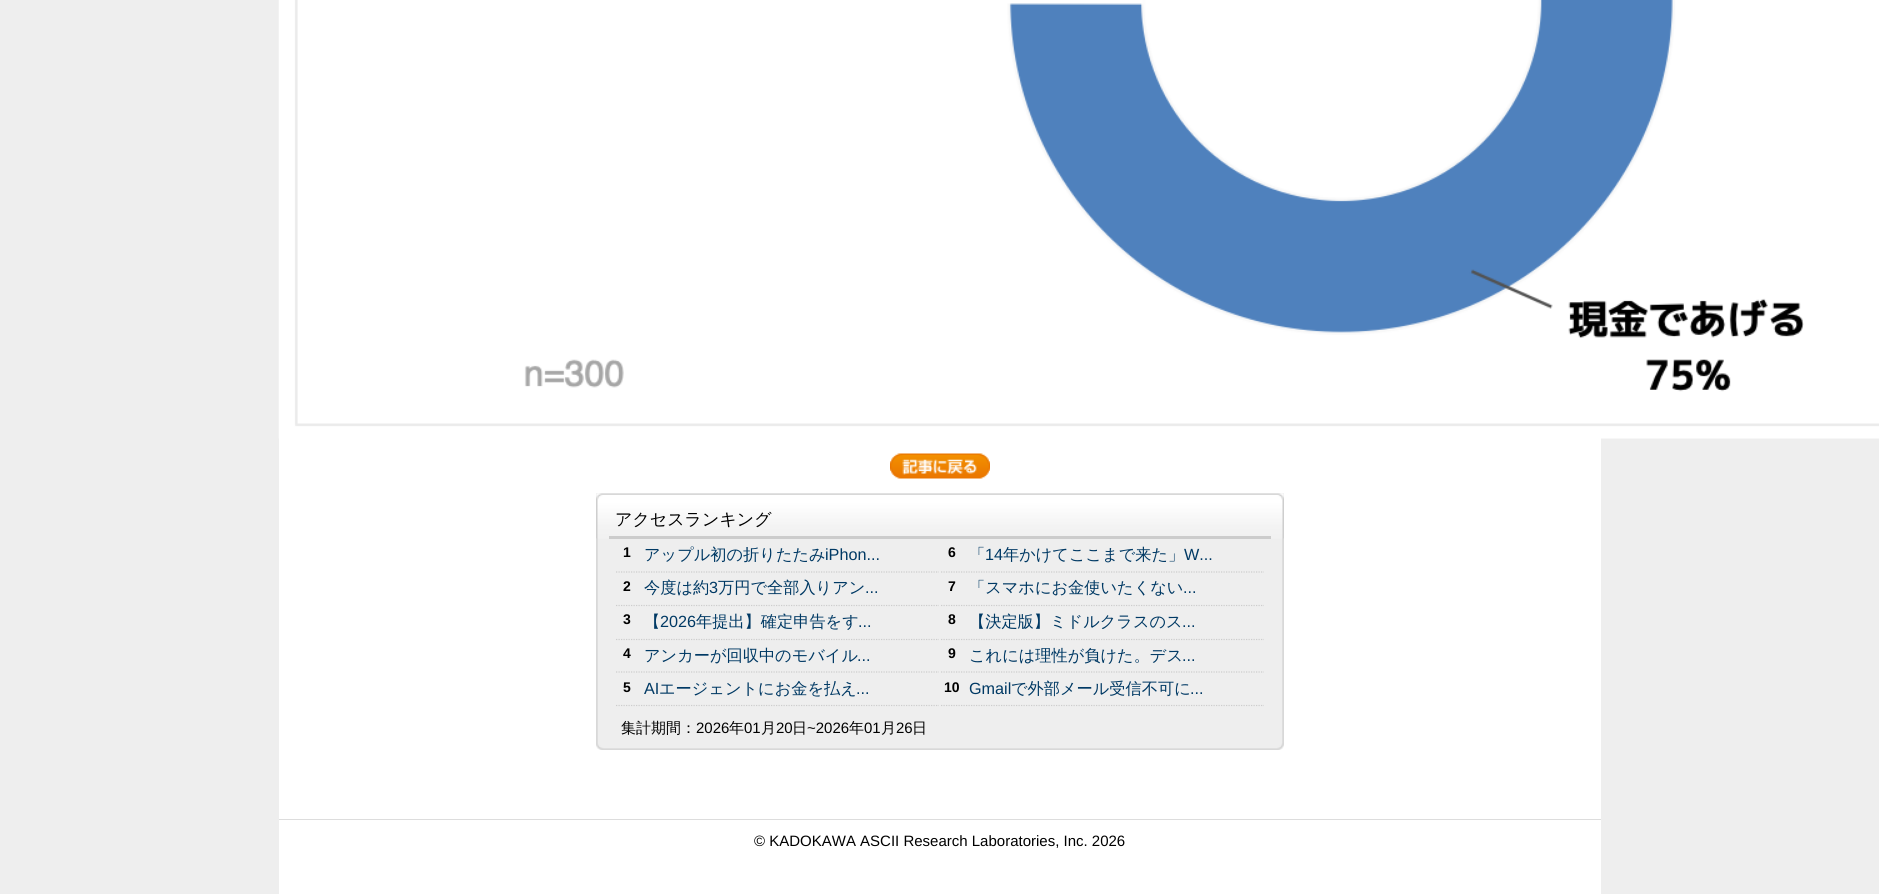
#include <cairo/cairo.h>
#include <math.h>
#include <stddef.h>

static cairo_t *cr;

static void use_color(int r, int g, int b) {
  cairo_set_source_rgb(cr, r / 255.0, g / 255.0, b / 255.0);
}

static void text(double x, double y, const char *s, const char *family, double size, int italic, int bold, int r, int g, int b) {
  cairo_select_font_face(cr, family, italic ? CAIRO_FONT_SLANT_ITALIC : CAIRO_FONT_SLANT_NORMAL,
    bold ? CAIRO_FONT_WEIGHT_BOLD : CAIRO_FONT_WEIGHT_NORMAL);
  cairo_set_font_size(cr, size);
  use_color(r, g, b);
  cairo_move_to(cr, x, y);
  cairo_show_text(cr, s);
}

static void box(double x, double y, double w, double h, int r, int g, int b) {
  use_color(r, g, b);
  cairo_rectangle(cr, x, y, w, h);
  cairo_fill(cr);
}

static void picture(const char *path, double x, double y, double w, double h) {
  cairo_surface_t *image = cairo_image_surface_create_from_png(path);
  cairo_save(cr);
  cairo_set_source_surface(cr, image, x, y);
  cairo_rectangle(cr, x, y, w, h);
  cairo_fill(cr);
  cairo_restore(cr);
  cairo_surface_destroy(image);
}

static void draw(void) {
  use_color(238, 238, 238);
  cairo_paint(cr);
  box(279, 438, 1322, 456, 255, 255, 255);
  picture("img_01.png", 278, 0, 1601, 439);
  picture("img_02.png", 890, 453, 100, 26);
  picture("img_03.png", 596, 493, 688, 257);
  picture("img_04.png", 596, 493, 688, 46);
  box(609, 536, 662, 3, 204, 204, 204);
  cairo_new_path(cr);
  cairo_move_to(cr, 616, 572);
  cairo_line_to(cr, 939, 572);
  cairo_set_line_width(cr, 1.2);
  cairo_set_dash(cr, (double[]){1.25, 1.25}, 2, 0);
  cairo_stroke(cr);
  cairo_new_path(cr);
  cairo_move_to(cr, 616, 605.5);
  cairo_line_to(cr, 939, 605.5);
  cairo_stroke(cr);
  cairo_new_path(cr);
  cairo_move_to(cr, 616, 639.5);
  cairo_line_to(cr, 939, 639.5);
  cairo_stroke(cr);
  cairo_new_path(cr);
  cairo_move_to(cr, 616, 672);
  cairo_line_to(cr, 939, 672);
  cairo_stroke(cr);
  cairo_new_path(cr);
  cairo_move_to(cr, 616, 705.5);
  cairo_line_to(cr, 939, 705.5);
  cairo_stroke(cr);
  cairo_new_path(cr);
  cairo_move_to(cr, 941, 572);
  cairo_line_to(cr, 1264, 572);
  cairo_stroke(cr);
  cairo_new_path(cr);
  cairo_move_to(cr, 941, 605.5);
  cairo_line_to(cr, 1264, 605.5);
  cairo_stroke(cr);
  cairo_new_path(cr);
  cairo_move_to(cr, 941, 639.5);
  cairo_line_to(cr, 1264, 639.5);
  cairo_stroke(cr);
  cairo_new_path(cr);
  cairo_move_to(cr, 941, 672);
  cairo_line_to(cr, 1264, 672);
  cairo_stroke(cr);
  cairo_new_path(cr);
  cairo_move_to(cr, 941, 705.5);
  cairo_line_to(cr, 1264, 705.5);
  cairo_stroke(cr);
  box(279, 819, 1322, 1, 221, 221, 221);
  text(615, 525, "アクセスランキング", "WenQuanYi Zen Hei Medium", 17, 0, 0, 0, 0, 0);
  text(623, 557, "1", "Liberation Sans", 14, 0, 1, 0, 0, 0);
  text(644, 560, "アップル初の折りたたみ", "WenQuanYi Zen Hei Medium", 16.2, 0, 0, 0, 57, 100);
  text(825, 560, "iPhon...", "Liberation Sans", 16.2, 0, 0, 0, 57, 100);
  text(623, 591, "2", "Liberation Sans", 14, 0, 1, 0, 0, 0);
  text(644, 593, "今度は約", "WenQuanYi Zen Hei Medium", 16.2, 0, 0, 0, 57, 100);
  text(709, 593, "3", "Liberation Sans", 16.2, 0, 0, 0, 57, 100);
  text(718, 593, "万円で全部入りアン", "WenQuanYi Zen Hei Medium", 16.2, 0, 0, 0, 57, 100);
  text(865, 593, "...", "Liberation Sans", 16.2, 0, 0, 0, 57, 100);
  text(623, 624, "3", "Liberation Sans", 14, 0, 1, 0, 0, 0);
  text(644, 627, "【", "WenQuanYi Zen Hei Medium", 16.2, 0, 0, 0, 57, 100);
  text(660, 627, "2026", "Liberation Sans", 16.2, 0, 0, 0, 57, 100);
  text(696, 627, "年提出】確定申告をす", "WenQuanYi Zen Hei Medium", 16.2, 0, 0, 0, 57, 100);
  text(858, 627, "...", "Liberation Sans", 16.2, 0, 0, 0, 57, 100);
  text(623, 658, "4", "Liberation Sans", 14, 0, 1, 0, 0, 0);
  text(644, 661, "アンカーが回収中のモバイル", "WenQuanYi Zen Hei Medium", 16.2, 0, 0, 0, 57, 100);
  text(857, 661, "...", "Liberation Sans", 16.2, 0, 0, 0, 57, 100);
  text(623, 692, "5", "Liberation Sans", 14, 0, 1, 0, 0, 0);
  text(644, 694, "AI", "Liberation Sans", 16.2, 0, 0, 0, 57, 100);
  text(659, 694, "エージェントにお金を払え", "WenQuanYi Zen Hei Medium", 16.2, 0, 0, 0, 57, 100);
  text(856, 694, "...", "Liberation Sans", 16.2, 0, 0, 0, 57, 100);
  text(948, 557, "6", "Liberation Sans", 14, 0, 1, 0, 0, 0);
  text(969, 560, "「", "WenQuanYi Zen Hei Medium", 16.2, 0, 0, 0, 57, 100);
  text(985, 560, "14", "Liberation Sans", 16.2, 0, 0, 0, 57, 100);
  text(1003, 560, "年かけてここまで来た」", "WenQuanYi Zen Hei Medium", 16.2, 0, 0, 0, 57, 100);
  text(1184, 560, "W...", "Liberation Sans", 16.2, 0, 0, 0, 57, 100);
  text(948, 591, "7", "Liberation Sans", 14, 0, 1, 0, 0, 0);
  text(969, 593, "「スマホにお金使いたくない", "WenQuanYi Zen Hei Medium", 16.2, 0, 0, 0, 57, 100);
  text(1183, 593, "...", "Liberation Sans", 16.2, 0, 0, 0, 57, 100);
  text(948, 624, "8", "Liberation Sans", 14, 0, 1, 0, 0, 0);
  text(969, 627, "【決定版】ミドルクラスのス", "WenQuanYi Zen Hei Medium", 16.2, 0, 0, 0, 57, 100);
  text(1182, 627, "...", "Liberation Sans", 16.2, 0, 0, 0, 57, 100);
  text(948, 658, "9", "Liberation Sans", 14, 0, 1, 0, 0, 0);
  text(969, 661, "これには理性が負けた。デス", "WenQuanYi Zen Hei Medium", 16.2, 0, 0, 0, 57, 100);
  text(1182, 661, "...", "Liberation Sans", 16.2, 0, 0, 0, 57, 100);
  text(944, 692, "10", "Liberation Sans", 14, 0, 1, 0, 0, 0);
  text(969, 694, "Gmail", "Liberation Sans", 16.2, 0, 0, 0, 57, 100);
  text(1011, 694, "で外部メール受信不可に", "WenQuanYi Zen Hei Medium", 16.2, 0, 0, 0, 57, 100);
  text(1190, 694, "...", "Liberation Sans", 16.2, 0, 0, 0, 57, 100);
  text(621, 733, "集計期間：", "WenQuanYi Zen Hei Medium", 15, 0, 0, 0, 0, 0);
  text(696, 733, "2026", "Liberation Sans", 15, 0, 0, 0, 0, 0);
  text(729, 733, "年", "WenQuanYi Zen Hei Medium", 15, 0, 0, 0, 0, 0);
  text(744, 733, "01", "Liberation Sans", 15, 0, 0, 0, 0, 0);
  text(761, 733, "月", "WenQuanYi Zen Hei Medium", 15, 0, 0, 0, 0, 0);
  text(776, 733, "20", "Liberation Sans", 15, 0, 0, 0, 0, 0);
  text(792, 733, "日", "WenQuanYi Zen Hei Medium", 15, 0, 0, 0, 0, 0);
  text(807, 733, "~2026", "Liberation Sans", 15, 0, 0, 0, 0, 0);
  text(849, 733, "年", "WenQuanYi Zen Hei Medium", 15, 0, 0, 0, 0, 0);
  text(864, 733, "01", "Liberation Sans", 15, 0, 0, 0, 0, 0);
  text(881, 733, "月", "WenQuanYi Zen Hei Medium", 15, 0, 0, 0, 0, 0);
  text(896, 733, "26", "Liberation Sans", 15, 0, 0, 0, 0, 0);
  text(912, 733, "日", "WenQuanYi Zen Hei Medium", 15, 0, 0, 0, 0, 0);
  text(754, 846, "© KADOKAWA ASCII Research Laboratories, Inc. 2026", "Liberation Sans", 15, 0, 0, 0, 0, 0);
}

int main(void) {
  cairo_surface_t *surface = cairo_image_surface_create(CAIRO_FORMAT_RGB24, 1879, 894);
  cr = cairo_create(surface);
  cairo_font_options_t *options = cairo_font_options_create();
  cairo_font_options_set_hint_metrics(options, CAIRO_HINT_METRICS_OFF);
  cairo_font_options_set_hint_style(options, CAIRO_HINT_STYLE_NONE);
  cairo_set_font_options(cr, options);
  cairo_set_miter_limit(cr, 4);
  draw();
  cairo_surface_write_to_png(surface, "out.png");
  cairo_font_options_destroy(options);
  cairo_destroy(cr);
  cairo_surface_destroy(surface);
  return 0;
}
